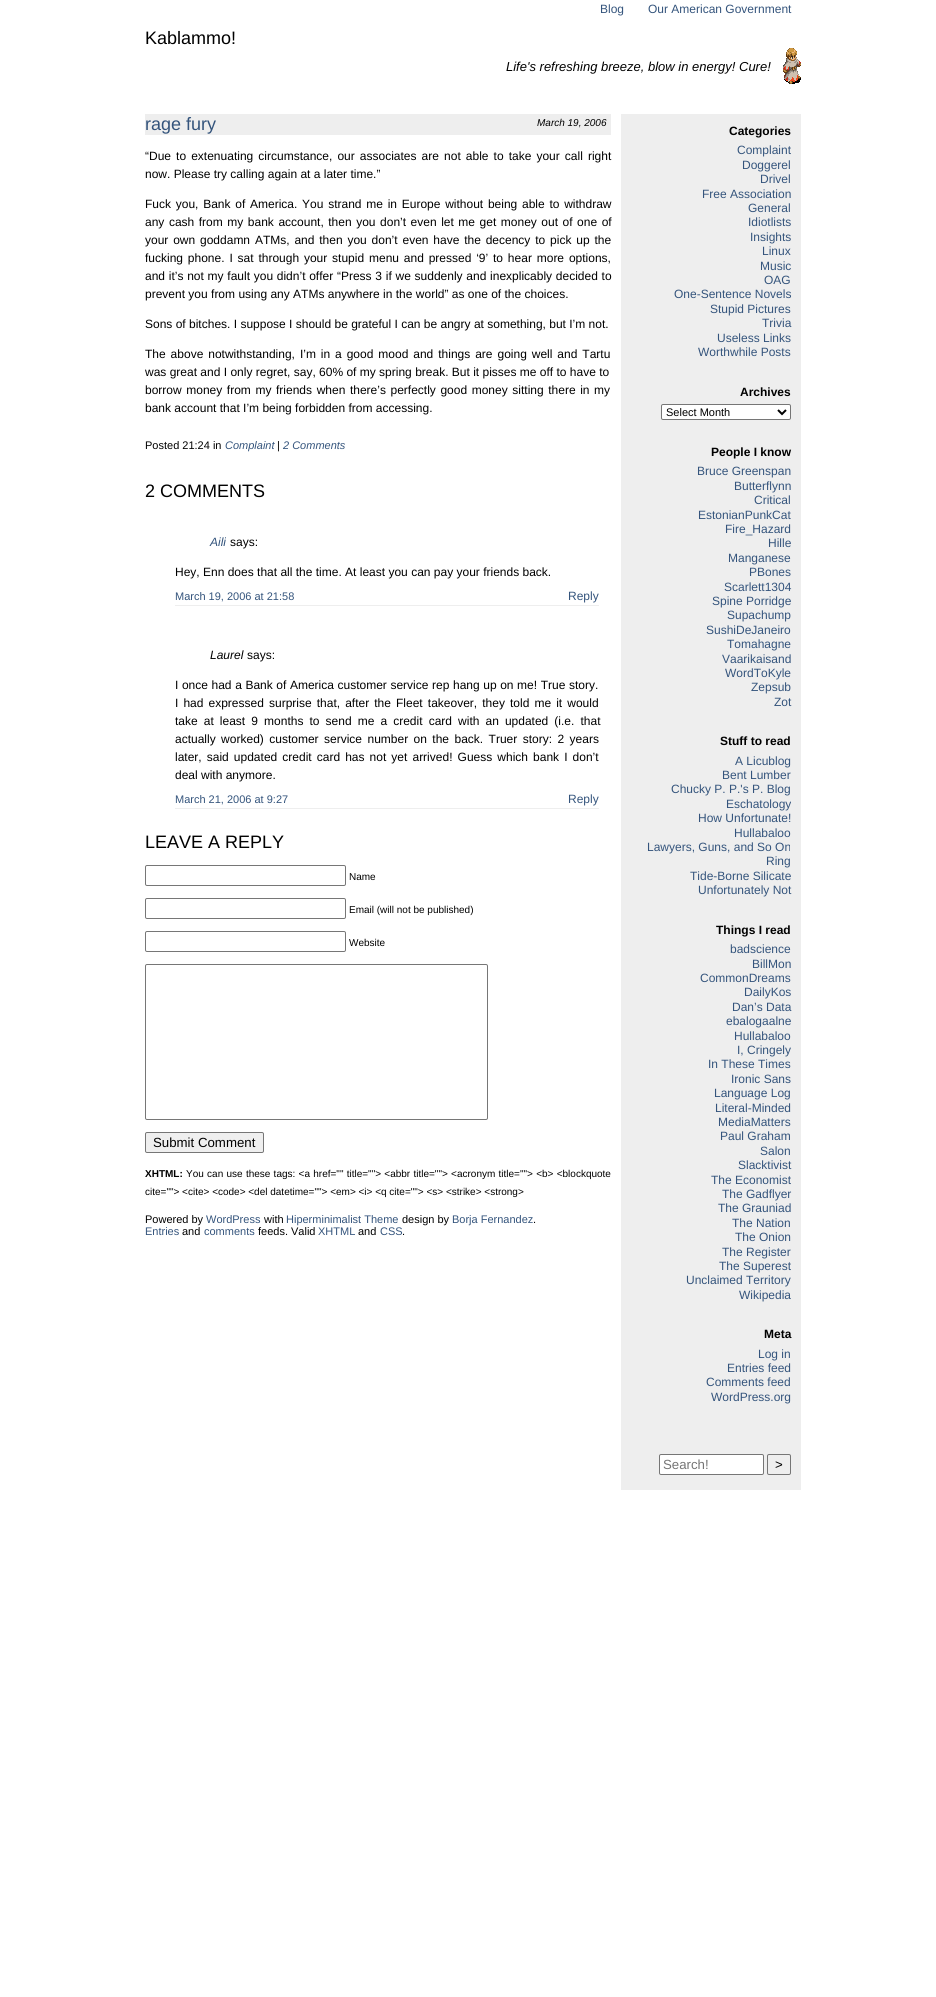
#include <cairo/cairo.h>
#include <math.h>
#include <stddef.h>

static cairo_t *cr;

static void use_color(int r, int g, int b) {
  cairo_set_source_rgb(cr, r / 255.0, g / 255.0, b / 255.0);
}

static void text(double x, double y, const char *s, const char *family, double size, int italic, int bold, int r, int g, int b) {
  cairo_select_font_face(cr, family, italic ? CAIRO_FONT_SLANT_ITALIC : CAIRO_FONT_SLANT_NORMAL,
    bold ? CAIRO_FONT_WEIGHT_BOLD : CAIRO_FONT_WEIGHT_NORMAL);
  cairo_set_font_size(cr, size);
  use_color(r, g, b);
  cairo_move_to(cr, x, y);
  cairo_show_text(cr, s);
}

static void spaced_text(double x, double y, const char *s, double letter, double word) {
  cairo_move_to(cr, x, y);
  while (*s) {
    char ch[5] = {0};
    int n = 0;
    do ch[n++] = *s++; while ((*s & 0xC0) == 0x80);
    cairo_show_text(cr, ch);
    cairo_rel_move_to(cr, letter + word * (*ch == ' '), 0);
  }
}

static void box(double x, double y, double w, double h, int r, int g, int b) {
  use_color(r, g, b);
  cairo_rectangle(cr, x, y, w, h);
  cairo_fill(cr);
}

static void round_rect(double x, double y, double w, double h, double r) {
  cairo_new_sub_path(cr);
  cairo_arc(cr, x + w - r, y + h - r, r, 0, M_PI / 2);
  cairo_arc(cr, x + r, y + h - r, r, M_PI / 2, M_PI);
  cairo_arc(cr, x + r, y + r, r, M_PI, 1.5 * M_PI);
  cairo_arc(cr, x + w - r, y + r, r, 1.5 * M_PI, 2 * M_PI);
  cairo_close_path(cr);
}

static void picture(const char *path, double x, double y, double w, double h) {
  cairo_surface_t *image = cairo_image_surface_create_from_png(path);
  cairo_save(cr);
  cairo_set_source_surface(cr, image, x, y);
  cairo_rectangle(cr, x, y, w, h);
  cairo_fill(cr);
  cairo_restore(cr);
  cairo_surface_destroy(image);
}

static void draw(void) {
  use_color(255, 255, 255);
  cairo_paint(cr);
  picture("img_01.png", 783, 48, 18, 36);
  box(145, 114, 466, 21, 238, 238, 238);
  box(175, 605, 424, 1, 238, 238, 238);
  box(175, 808, 424, 1, 238, 238, 238);
  round_rect(145.5, 865.5, 200, 20, 1.5);
  use_color(118, 118, 118);
  cairo_set_line_width(cr, 1);
  cairo_stroke(cr);
  round_rect(145.5, 898.5, 200, 20, 1.5);
  cairo_stroke(cr);
  round_rect(145.5, 931.5, 200, 20, 1.5);
  cairo_stroke(cr);
  round_rect(145.5, 964.5, 342, 155, 1.5);
  cairo_stroke(cr);
  use_color(239, 239, 239);
  round_rect(145.5, 1132.5, 118, 20, 1.5);
  cairo_fill_preserve(cr);
  use_color(118, 118, 118);
  cairo_stroke(cr);
  box(621, 114, 180, 1376, 238, 238, 238);
  use_color(255, 255, 255);
  round_rect(661.5, 404.5, 129, 15, 1.5);
  cairo_fill_preserve(cr);
  use_color(118, 118, 118);
  cairo_stroke(cr);
  cairo_new_path(cr);
  cairo_move_to(cr, 778, 410);
  cairo_line_to(cr, 782, 414);
  cairo_line_to(cr, 786, 410);
  use_color(0, 0, 0);
  cairo_set_line_width(cr, 2);
  cairo_stroke(cr);
  use_color(255, 255, 255);
  round_rect(659.5, 1454.5, 104, 20, 1.5);
  cairo_fill_preserve(cr);
  use_color(118, 118, 118);
  cairo_set_line_width(cr, 1);
  cairo_stroke(cr);
  round_rect(767.5, 1454.5, 23, 20, 1.5);
  cairo_stroke(cr);
  text(600, 13, "Blog", "Liberation Sans", 12, 0, 0, 52, 84, 124);
  text(648, 13, "Our American Government", "Liberation Sans", 12, 0, 0, 52, 84, 124);
  text(145, 44, "Kablammo!", "Liberation Sans", 18, 0, 0, 0, 0, 0);
  text(506, 71, "Life's refreshing breeze, blow in energy! Cure!", "Liberation Sans", 13, 1, 0, 0, 0, 0);
  text(145, 130, "rage fury", "Liberation Sans", 18, 0, 0, 52, 84, 124);
  text(537, 126, "March 19, 2006", "Liberation Sans", 10, 1, 0, 0, 0, 0);
  cairo_select_font_face(cr, "Liberation Sans", CAIRO_FONT_SLANT_NORMAL, CAIRO_FONT_WEIGHT_NORMAL);
  cairo_set_font_size(cr, 12);
  spaced_text(145, 160, "“Due to extenuating circumstance, our associates are not able to take your call right", 0, 1.75);
  text(145, 178, "now. Please try calling again at a later time.”", "Liberation Sans", 12, 0, 0, 0, 0, 0);
  spaced_text(145, 208, "Fuck you, Bank of America. You strand me in Europe without being able to withdraw", 0, 1.4);
  spaced_text(145, 226, "any cash from my bank account, then you don’t even let me get money out of one of", 0, 1.2);
  spaced_text(145, 244, "your own goddamn ATMs, and then you don’t even have the decency to pick up the", 0, 1.5);
  spaced_text(145, 262, "fucking phone. I sat through your stupid menu and pressed ‘9’ to hear more options,", 0, 1.5);
  spaced_text(145, 280, "and it’s not my fault you didn’t offer “Press 3 if we suddenly and inexplicably decided to", 0, 0.4);
  text(145, 298, "prevent you from using any ATMs anywhere in the world” as one of the choices.", "Liberation Sans", 12, 0, 0, 0, 0, 0);
  text(145, 328, "Sons of bitches. I suppose I should be grateful I can be angry at something, but I’m not.", "Liberation Sans", 12, 0, 0, 0, 0, 0);
  spaced_text(145, 358, "The above notwithstanding, I’m in a good mood and things are going well and Tartu", 0, 1.6);
  text(145, 376, "was great and I only regret, say, 60% of my spring break. But it pisses me off to have to", "Liberation Sans", 12, 0, 0, 0, 0, 0);
  spaced_text(145, 394, "borrow money from my friends when there’s perfectly good money sitting there in my", 0, 1.25);
  text(145, 412, "bank account that I’m being forbidden from accessing.", "Liberation Sans", 12, 0, 0, 0, 0, 0);
  text(145, 449, "Posted 21:24 in", "Liberation Sans", 11, 0, 0, 0, 0, 0);
  text(225, 449, "Complaint", "Liberation Sans", 11, 1, 0, 52, 84, 124);
  text(277, 449, "|", "Liberation Sans", 11, 0, 0, 0, 0, 0);
  text(283, 449, "2 Comments", "Liberation Sans", 11, 1, 0, 52, 84, 124);
  text(145, 497, "2 COMMENTS", "Liberation Sans", 18, 0, 0, 0, 0, 0);
  text(210, 546, "Aili", "Liberation Sans", 12, 1, 0, 52, 84, 124);
  text(230, 546, "says:", "Liberation Sans", 12, 0, 0, 0, 0, 0);
  text(175, 576, "Hey, Enn does that all the time. At least you can pay your friends back.", "Liberation Sans", 12, 0, 0, 0, 0, 0);
  text(175, 600, "March 19, 2006 at 21:58", "Liberation Sans", 11, 0, 0, 52, 84, 124);
  text(568, 600, "Reply", "Liberation Sans", 12, 0, 0, 52, 84, 124);
  text(210, 659, "Laurel", "Liberation Sans", 12, 1, 0, 0, 0, 0);
  text(247, 659, "says:", "Liberation Sans", 12, 0, 0, 0, 0, 0);
  spaced_text(175, 689, "I once had a Bank of America customer service rep hang up on me! True story.", 0, 0.25);
  spaced_text(175, 707, "I had expressed surprise that, after the Fleet takeover, they told me it would", 0, 1.75);
  spaced_text(175, 725, "take at least 9 months to send me a credit card with an updated (i.e. that", 0, 2.75);
  spaced_text(175, 743, "actually worked) customer service number on the back. Truer story: 2 years", 0, 2.1);
  spaced_text(175, 761, "later, said updated credit card has not yet arrived! Guess which bank I don’t", 0, 1.75);
  text(175, 779, "deal with anymore.", "Liberation Sans", 12, 0, 0, 0, 0, 0);
  text(175, 803, "March 21, 2006 at 9:27", "Liberation Sans", 11, 0, 0, 52, 84, 124);
  text(568, 803, "Reply", "Liberation Sans", 12, 0, 0, 52, 84, 124);
  text(145, 848, "LEAVE A REPLY", "Liberation Sans", 18, 0, 0, 0, 0, 0);
  text(349, 880, "Name", "Liberation Sans", 10, 0, 0, 0, 0, 0);
  text(349, 913, "Email (will not be published)", "Liberation Sans", 10, 0, 0, 0, 0, 0);
  text(349, 946, "Website", "Liberation Sans", 10, 0, 0, 0, 0, 0);
  text(153, 1147, "Submit Comment", "Liberation Sans", 13.25, 0, 0, 0, 0, 0);
  text(145, 1177, "XHTML:", "Liberation Sans", 10, 0, 1, 0, 0, 0);
  cairo_select_font_face(cr, "Liberation Sans", CAIRO_FONT_SLANT_NORMAL, CAIRO_FONT_WEIGHT_NORMAL);
  spaced_text(186, 1177, "You can use these tags: <a href=\"\" title=\"\"> <abbr title=\"\"> <acronym title=\"\"> <b> <blockquote", 0, 0.5);
  text(145, 1195, "cite=\"\"> <cite> <code> <del datetime=\"\"> <em> <i> <q cite=\"\"> <s> <strike> <strong>", "Liberation Sans", 10, 0, 0, 0, 0, 0);
  text(729, 135, "Categories", "Liberation Sans", 12, 0, 1, 0, 0, 0);
  text(737, 154, "Complaint", "Liberation Sans", 12, 0, 0, 52, 84, 124);
  text(742, 169, "Doggerel", "Liberation Sans", 12, 0, 0, 52, 84, 124);
  text(760, 183, "Drivel", "Liberation Sans", 12, 0, 0, 52, 84, 124);
  text(702, 198, "Free Association", "Liberation Sans", 12, 0, 0, 52, 84, 124);
  text(748, 212, "General", "Liberation Sans", 12, 0, 0, 52, 84, 124);
  text(748, 226, "Idiotlists", "Liberation Sans", 12, 0, 0, 52, 84, 124);
  text(750, 241, "Insights", "Liberation Sans", 12, 0, 0, 52, 84, 124);
  text(762, 255, "Linux", "Liberation Sans", 12, 0, 0, 52, 84, 124);
  text(760, 270, "Music", "Liberation Sans", 12, 0, 0, 52, 84, 124);
  text(764, 284, "OAG", "Liberation Sans", 12, 0, 0, 52, 84, 124);
  text(674, 298, "One-Sentence Novels", "Liberation Sans", 12, 0, 0, 52, 84, 124);
  text(710, 313, "Stupid Pictures", "Liberation Sans", 12, 0, 0, 52, 84, 124);
  text(762, 327, "Trivia", "Liberation Sans", 12, 0, 0, 52, 84, 124);
  text(717, 342, "Useless Links", "Liberation Sans", 12, 0, 0, 52, 84, 124);
  text(698, 356, "Worthwhile Posts", "Liberation Sans", 12, 0, 0, 52, 84, 124);
  text(740, 396, "Archives", "Liberation Sans", 12, 0, 1, 0, 0, 0);
  text(666, 416, "Select Month", "Liberation Sans", 11, 0, 0, 0, 0, 0);
  text(711, 456, "People I know", "Liberation Sans", 12, 0, 1, 0, 0, 0);
  text(697, 475, "Bruce Greenspan", "Liberation Sans", 12, 0, 0, 52, 84, 124);
  text(734, 490, "Butterflynn", "Liberation Sans", 12, 0, 0, 52, 84, 124);
  text(754, 504, "Critical", "Liberation Sans", 12, 0, 0, 52, 84, 124);
  text(698, 519, "EstonianPunkCat", "Liberation Sans", 12, 0, 0, 52, 84, 124);
  text(725, 533, "Fire_Hazard", "Liberation Sans", 12, 0, 0, 52, 84, 124);
  text(768, 547, "Hille", "Liberation Sans", 12, 0, 0, 52, 84, 124);
  text(728, 562, "Manganese", "Liberation Sans", 12, 0, 0, 52, 84, 124);
  text(749, 576, "PBones", "Liberation Sans", 12, 0, 0, 52, 84, 124);
  text(724, 591, "Scarlett1304", "Liberation Sans", 12, 0, 0, 52, 84, 124);
  text(712, 605, "Spine Porridge", "Liberation Sans", 12, 0, 0, 52, 84, 124);
  text(727, 619, "Supachump", "Liberation Sans", 12, 0, 0, 52, 84, 124);
  text(706, 634, "SushiDeJaneiro", "Liberation Sans", 12, 0, 0, 52, 84, 124);
  text(727, 648, "Tomahagne", "Liberation Sans", 12, 0, 0, 52, 84, 124);
  text(722, 663, "Vaarikaisand", "Liberation Sans", 12, 0, 0, 52, 84, 124);
  text(725, 677, "WordToKyle", "Liberation Sans", 12, 0, 0, 52, 84, 124);
  text(751, 691, "Zepsub", "Liberation Sans", 12, 0, 0, 52, 84, 124);
  text(774, 706, "Zot", "Liberation Sans", 12, 0, 0, 52, 84, 124);
  text(720, 745, "Stuff to read", "Liberation Sans", 12, 0, 1, 0, 0, 0);
  text(735, 765, "A Licublog", "Liberation Sans", 12, 0, 0, 52, 84, 124);
  text(722, 779, "Bent Lumber", "Liberation Sans", 12, 0, 0, 52, 84, 124);
  text(671, 793, "Chucky P. P.'s P. Blog", "Liberation Sans", 12, 0, 0, 52, 84, 124);
  text(726, 808, "Eschatology", "Liberation Sans", 12, 0, 0, 52, 84, 124);
  text(698, 822, "How Unfortunate!", "Liberation Sans", 12, 0, 0, 52, 84, 124);
  text(734, 837, "Hullabaloo", "Liberation Sans", 12, 0, 0, 52, 84, 124);
  text(647, 851, "Lawyers, Guns, and So On", "Liberation Sans", 12, 0, 0, 52, 84, 124);
  text(766, 865, "Ring", "Liberation Sans", 12, 0, 0, 52, 84, 124);
  text(690, 880, "Tide-Borne Silicate", "Liberation Sans", 12, 0, 0, 52, 84, 124);
  text(698, 894, "Unfortunately Not", "Liberation Sans", 12, 0, 0, 52, 84, 124);
  text(716, 934, "Things I read", "Liberation Sans", 12, 0, 1, 0, 0, 0);
  text(730, 953, "badscience", "Liberation Sans", 12, 0, 0, 52, 84, 124);
  text(752, 968, "BillMon", "Liberation Sans", 12, 0, 0, 52, 84, 124);
  text(700, 982, "CommonDreams", "Liberation Sans", 12, 0, 0, 52, 84, 124);
  text(744, 996, "DailyKos", "Liberation Sans", 12, 0, 0, 52, 84, 124);
  text(732, 1011, "Dan’s Data", "Liberation Sans", 12, 0, 0, 52, 84, 124);
  text(726, 1025, "ebalogaalne", "Liberation Sans", 12, 0, 0, 52, 84, 124);
  text(734, 1040, "Hullabaloo", "Liberation Sans", 12, 0, 0, 52, 84, 124);
  text(737, 1054, "I, Cringely", "Liberation Sans", 12, 0, 0, 52, 84, 124);
  text(708, 1068, "In These Times", "Liberation Sans", 12, 0, 0, 52, 84, 124);
  text(731, 1083, "Ironic Sans", "Liberation Sans", 12, 0, 0, 52, 84, 124);
  text(714, 1097, "Language Log", "Liberation Sans", 12, 0, 0, 52, 84, 124);
  text(715, 1112, "Literal-Minded", "Liberation Sans", 12, 0, 0, 52, 84, 124);
  text(718, 1126, "MediaMatters", "Liberation Sans", 12, 0, 0, 52, 84, 124);
  text(720, 1140, "Paul Graham", "Liberation Sans", 12, 0, 0, 52, 84, 124);
  text(760, 1155, "Salon", "Liberation Sans", 12, 0, 0, 52, 84, 124);
  text(738, 1169, "Slacktivist", "Liberation Sans", 12, 0, 0, 52, 84, 124);
  text(711, 1184, "The Economist", "Liberation Sans", 12, 0, 0, 52, 84, 124);
  text(722, 1198, "The Gadflyer", "Liberation Sans", 12, 0, 0, 52, 84, 124);
  text(718, 1212, "The Grauniad", "Liberation Sans", 12, 0, 0, 52, 84, 124);
  text(732, 1227, "The Nation", "Liberation Sans", 12, 0, 0, 52, 84, 124);
  text(735, 1241, "The Onion", "Liberation Sans", 12, 0, 0, 52, 84, 124);
  text(722, 1256, "The Register", "Liberation Sans", 12, 0, 0, 52, 84, 124);
  text(719, 1270, "The Superest", "Liberation Sans", 12, 0, 0, 52, 84, 124);
  text(686, 1284, "Unclaimed Territory", "Liberation Sans", 12, 0, 0, 52, 84, 124);
  text(739, 1299, "Wikipedia", "Liberation Sans", 12, 0, 0, 52, 84, 124);
  text(764, 1338, "Meta", "Liberation Sans", 12, 0, 1, 0, 0, 0);
  text(758, 1358, "Log in", "Liberation Sans", 12, 0, 0, 52, 84, 124);
  text(727, 1372, "Entries feed", "Liberation Sans", 12, 0, 0, 52, 84, 124);
  text(706, 1386, "Comments feed", "Liberation Sans", 12, 0, 0, 52, 84, 124);
  text(711, 1401, "WordPress.org", "Liberation Sans", 12, 0, 0, 52, 84, 124);
  text(663, 1469, "Search!", "Liberation Sans", 13.25, 0, 0, 117, 117, 117);
  text(775, 1469, ">", "Liberation Sans", 13.25, 0, 0, 0, 0, 0);
  text(145, 1223, "Powered by", "Liberation Sans", 11, 0, 0, 0, 0, 0);
  text(206, 1223, "WordPress", "Liberation Sans", 11, 0, 0, 52, 84, 124);
  text(264, 1223, "with", "Liberation Sans", 11, 0, 0, 0, 0, 0);
  text(286, 1223, "Hiperminimalist Theme", "Liberation Sans", 11, 0, 0, 52, 84, 124);
  text(402, 1223, "design by", "Liberation Sans", 11, 0, 0, 0, 0, 0);
  text(452, 1223, "Borja Fernandez", "Liberation Sans", 11, 0, 0, 52, 84, 124);
  text(533, 1223, ".", "Liberation Sans", 11, 0, 0, 0, 0, 0);
  text(145, 1235, "Entries", "Liberation Sans", 11, 0, 0, 52, 84, 124);
  text(182, 1235, "and", "Liberation Sans", 11, 0, 0, 0, 0, 0);
  text(204, 1235, "comments", "Liberation Sans", 11, 0, 0, 52, 84, 124);
  text(258, 1235, "feeds. Valid", "Liberation Sans", 11, 0, 0, 0, 0, 0);
  text(318, 1235, "XHTML", "Liberation Sans", 11, 0, 0, 52, 84, 124);
  text(358, 1235, "and", "Liberation Sans", 11, 0, 0, 0, 0, 0);
  text(380, 1235, "CSS", "Liberation Sans", 11, 0, 0, 52, 84, 124);
  text(402, 1235, ".", "Liberation Sans", 11, 0, 0, 0, 0, 0);
}

int main(void) {
  cairo_surface_t *surface = cairo_image_surface_create(CAIRO_FORMAT_RGB24, 936, 1997);
  cr = cairo_create(surface);
  cairo_font_options_t *options = cairo_font_options_create();
  cairo_font_options_set_hint_metrics(options, CAIRO_HINT_METRICS_OFF);
  cairo_font_options_set_hint_style(options, CAIRO_HINT_STYLE_NONE);
  cairo_set_font_options(cr, options);
  cairo_set_miter_limit(cr, 4);
  draw();
  cairo_surface_write_to_png(surface, "out.png");
  cairo_font_options_destroy(options);
  cairo_destroy(cr);
  cairo_surface_destroy(surface);
  return 0;
}
